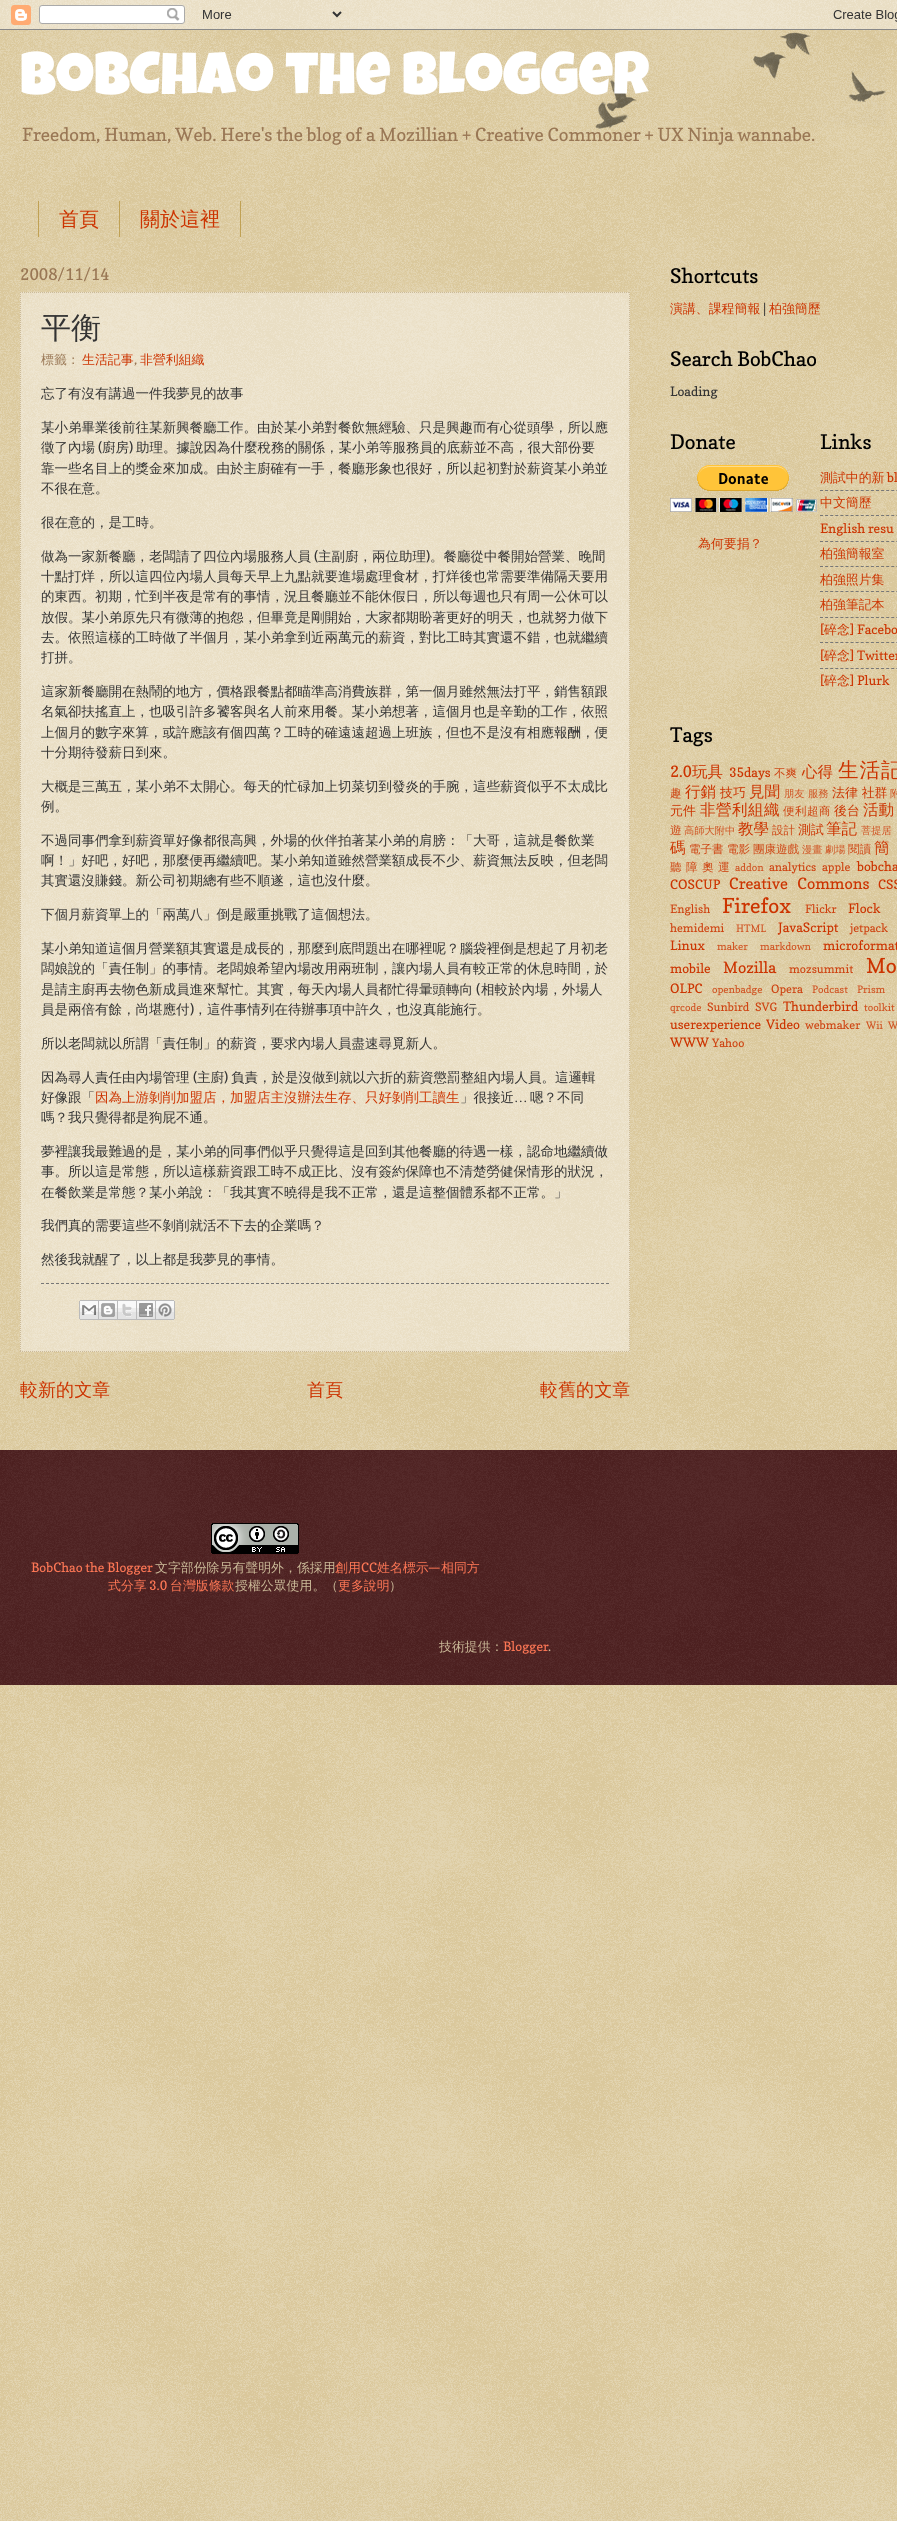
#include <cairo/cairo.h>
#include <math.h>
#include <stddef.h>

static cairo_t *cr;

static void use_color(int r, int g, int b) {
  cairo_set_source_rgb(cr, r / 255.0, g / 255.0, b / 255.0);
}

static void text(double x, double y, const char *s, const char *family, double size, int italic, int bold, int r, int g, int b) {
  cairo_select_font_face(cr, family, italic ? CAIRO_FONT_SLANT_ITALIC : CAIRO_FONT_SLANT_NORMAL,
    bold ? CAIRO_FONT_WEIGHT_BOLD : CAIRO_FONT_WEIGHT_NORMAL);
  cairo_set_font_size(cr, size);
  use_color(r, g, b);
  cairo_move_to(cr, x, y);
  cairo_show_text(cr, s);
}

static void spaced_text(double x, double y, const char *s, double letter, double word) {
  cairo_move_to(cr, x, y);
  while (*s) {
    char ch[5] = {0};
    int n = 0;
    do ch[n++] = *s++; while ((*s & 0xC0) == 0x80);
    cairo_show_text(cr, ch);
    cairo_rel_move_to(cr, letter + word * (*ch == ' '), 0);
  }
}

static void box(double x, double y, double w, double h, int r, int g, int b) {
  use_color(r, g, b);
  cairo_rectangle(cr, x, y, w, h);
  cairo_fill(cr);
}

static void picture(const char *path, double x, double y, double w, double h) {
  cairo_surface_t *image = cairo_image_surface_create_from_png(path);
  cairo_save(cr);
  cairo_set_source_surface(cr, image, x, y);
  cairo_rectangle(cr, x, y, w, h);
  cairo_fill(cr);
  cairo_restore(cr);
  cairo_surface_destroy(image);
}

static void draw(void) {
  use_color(192, 161, 84);
  cairo_paint(cr);
  picture("img_01.png", 0, 0, 897, 2521);
  picture("img_02.png", 0, 0, 897, 30);
  picture("img_03.png", 595, 32, 291, 97);
  box(119, 201, 1, 36, 192, 161, 84);
  box(38, 201, 1, 36, 192, 161, 84);
  box(240, 201, 1, 36, 192, 161, 84);
  cairo_set_source_rgba(cr, 1, 1, 1, 0.4);
  cairo_rectangle(cr, 20, 292, 610, 1060);
  cairo_fill(cr);
  cairo_new_path(cr);
  cairo_move_to(cr, 20, 292.5);
  cairo_line_to(cr, 630, 292.5);
  use_color(204, 187, 153);
  cairo_set_line_width(cr, 1);
  cairo_set_dash(cr, (double[]){1, 1}, 2, 0);
  cairo_stroke(cr);
  cairo_new_path(cr);
  cairo_move_to(cr, 629.5, 292);
  cairo_line_to(cr, 629.5, 1352);
  cairo_stroke(cr);
  cairo_new_path(cr);
  cairo_move_to(cr, 20, 1351.5);
  cairo_line_to(cr, 630, 1351.5);
  cairo_stroke(cr);
  cairo_new_path(cr);
  cairo_move_to(cr, 20.5, 292);
  cairo_line_to(cr, 20.5, 1352);
  cairo_stroke(cr);
  cairo_new_path(cr);
  cairo_move_to(cr, 41, 1283.5);
  cairo_line_to(cr, 609, 1283.5);
  use_color(119, 119, 119);
  cairo_set_dash(cr, (double[]){3, 2}, 2, 0);
  cairo_stroke(cr);
  picture("img_04.png", 79, 1300, 20, 20);
  picture("img_05.png", 99, 1300, 19, 20);
  picture("img_06.png", 118, 1300, 19, 20);
  picture("img_07.png", 137, 1300, 19, 20);
  picture("img_08.png", 156, 1300, 19, 20);
  picture("img_09.png", 670, 465, 147, 47);
  cairo_new_path(cr);
  cairo_move_to(cr, 820, 490.5);
  cairo_line_to(cr, 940, 490.5);
  cairo_set_dash(cr, (double[]){3, 2.09}, 2, 0);
  cairo_stroke(cr);
  cairo_new_path(cr);
  cairo_move_to(cr, 820, 515.5);
  cairo_line_to(cr, 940, 515.5);
  cairo_stroke(cr);
  cairo_new_path(cr);
  cairo_move_to(cr, 820, 541.5);
  cairo_line_to(cr, 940, 541.5);
  cairo_stroke(cr);
  cairo_new_path(cr);
  cairo_move_to(cr, 820, 566.5);
  cairo_line_to(cr, 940, 566.5);
  cairo_stroke(cr);
  cairo_new_path(cr);
  cairo_move_to(cr, 820, 591.5);
  cairo_line_to(cr, 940, 591.5);
  cairo_stroke(cr);
  cairo_new_path(cr);
  cairo_move_to(cr, 820, 617.5);
  cairo_line_to(cr, 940, 617.5);
  cairo_stroke(cr);
  cairo_new_path(cr);
  cairo_move_to(cr, 820, 642.5);
  cairo_line_to(cr, 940, 642.5);
  cairo_stroke(cr);
  cairo_new_path(cr);
  cairo_move_to(cr, 820, 668.5);
  cairo_line_to(cr, 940, 668.5);
  cairo_stroke(cr);
  box(0, 1450, 897, 235, 51, 0, 0);
  picture("img_10.png", 0, 1450, 897, 235);
  picture("img_11.png", 211, 1523, 88, 31);
  text(20, 94, "BobChao the Blogger", "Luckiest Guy", 60, 0, 0, 255, 255, 255);
  text(22, 141, "Freedom, Human, Web. Here's the blog of a Mozillian + Creative Commoner + UX Ninja wannabe.", "Copse", 18.05, 0, 0, 153, 119, 85);
  text(59, 226, "首頁", "WenQuanYi Zen Hei Medium", 20, 0, 0, 204, 51, 0);
  text(140, 226, "關於這裡", "WenQuanYi Zen Hei Medium", 20, 0, 0, 204, 51, 0);
  text(20, 280, "2008/11/14", "Copse", 16, 0, 0, 153, 119, 85);
  text(41, 338, "平衡", "WenQuanYi Zen Hei Medium", 30, 0, 0, 51, 51, 51);
  text(41, 364, "標籤：", "WenQuanYi Zen Hei Medium", 12.9, 0, 0, 153, 119, 85);
  text(82, 364, "生活記事", "WenQuanYi Zen Hei Medium", 12.9, 0, 0, 204, 51, 0);
  text(134, 364, ",", "Copse", 12.9, 0, 0, 153, 119, 85);
  text(140, 364, "非營利組織", "WenQuanYi Zen Hei Medium", 12.9, 0, 0, 204, 51, 0);
  text(41, 398, "忘了有沒有講過一件我夢見的故事", "WenQuanYi Zen Hei Medium", 13.5, 0, 0, 51, 51, 51);
  text(41, 432, "某小弟畢業後前往某新興餐廳工作。由於某小弟對餐飲無經驗、只是興趣而有心從頭學，所以應", "WenQuanYi Zen Hei Medium", 13.5, 0, 0, 51, 51, 51);
  text(41, 452, "徵了內場", "WenQuanYi Zen Hei Medium", 13.5, 0, 0, 51, 51, 51);
  text(98, 452, "(", "Copse", 13.5, 0, 0, 51, 51, 51);
  text(102, 452, "廚房", "WenQuanYi Zen Hei Medium", 13.5, 0, 0, 51, 51, 51);
  text(129, 452, ")", "Copse", 13.5, 0, 0, 51, 51, 51);
  text(136, 452, "助理。據說因為什麼稅務的關係，某小弟等服務員的底薪並不高，很大部份要", "WenQuanYi Zen Hei Medium", 13.5, 0, 0, 51, 51, 51);
  text(41, 473, "靠一些名目上的獎金來加成。由於主廚確有一手，餐廳形象也很好，所以起初對於薪資某小弟並", "WenQuanYi Zen Hei Medium", 13.5, 0, 0, 51, 51, 51);
  text(41, 493, "不很在意。", "WenQuanYi Zen Hei Medium", 13.5, 0, 0, 51, 51, 51);
  text(41, 527, "很在意的，是工時。", "WenQuanYi Zen Hei Medium", 13.5, 0, 0, 51, 51, 51);
  text(41, 561, "做為一家新餐廳，老闆請了四位內場服務人員", "WenQuanYi Zen Hei Medium", 13.5, 0, 0, 51, 51, 51);
  text(314, 561, "(", "Copse", 13.5, 0, 0, 51, 51, 51);
  text(318, 561, "主副廚，兩位助理 。餐廳從中餐開始營業、晚間", "WenQuanYi Zen Hei Medium", 13.5, 0, 0, 51, 51, 51);
  text(426, 561, ")", "Copse", 13.5, 0, 0, 51, 51, 51);
  text(41, 581, "十點打烊，所以這四位內場人員每天早上九點就要進場處理食材，打烊後也常需要準備隔天要用", "WenQuanYi Zen Hei Medium", 13.5, 0, 0, 51, 51, 51);
  text(41, 601, "的東西。初期，忙到半夜是常有的事情，況且餐廳並不能休假日，所以每週也只有周一公休可以", "WenQuanYi Zen Hei Medium", 13.5, 0, 0, 51, 51, 51);
  text(41, 622, "放假。某小弟原先只有微薄的抱怨，但畢竟是剛開始，大家都期盼著更好的明天，也就努力做下", "WenQuanYi Zen Hei Medium", 13.5, 0, 0, 51, 51, 51);
  text(41, 642, "去。依照這樣的工時做了半個月，某小弟拿到近兩萬元的薪資，對比工時其實還不錯，也就繼續", "WenQuanYi Zen Hei Medium", 13.5, 0, 0, 51, 51, 51);
  text(41, 662, "打拼。", "WenQuanYi Zen Hei Medium", 13.5, 0, 0, 51, 51, 51);
  text(41, 696, "這家新餐廳開在熱鬧的地方，價格跟餐點都瞄準高消費族群，第一個月雖然無法打平，銷售額跟", "WenQuanYi Zen Hei Medium", 13.5, 0, 0, 51, 51, 51);
  text(41, 716, "名氣卻扶搖直上，也吸引許多饕客與名人前來用餐。某小弟想著，這個月也是辛勤的工作，依照", "WenQuanYi Zen Hei Medium", 13.5, 0, 0, 51, 51, 51);
  text(41, 737, "上個月的數字來算，或許應該有個四萬？工時的確遠遠超過上班族，但也不是沒有相應報酬，便", "WenQuanYi Zen Hei Medium", 13.5, 0, 0, 51, 51, 51);
  text(41, 757, "十分期待發薪日到來。", "WenQuanYi Zen Hei Medium", 13.5, 0, 0, 51, 51, 51);
  text(41, 791, "大概是三萬五，某小弟不太開心。每天的忙碌加上切菜切到發炎的手腕，這些薪資似乎不太成比", "WenQuanYi Zen Hei Medium", 13.5, 0, 0, 51, 51, 51);
  text(41, 811, "例。", "WenQuanYi Zen Hei Medium", 13.5, 0, 0, 51, 51, 51);
  text(41, 845, "不過同事們拿到薪資單好像都很高興，外場的伙伴拍著某小弟的肩膀：「大哥，這就是餐飲業", "WenQuanYi Zen Hei Medium", 13.5, 0, 0, 51, 51, 51);
  text(41, 865, "啊！」好吧，好吧，那麼便再繼續吧。某小弟知道雖然營業額成長不少、薪資無法反映，但老闆", "WenQuanYi Zen Hei Medium", 13.5, 0, 0, 51, 51, 51);
  text(41, 885, "其實還沒賺錢。新公司初期總有些不順遂，這也沒什麼。", "WenQuanYi Zen Hei Medium", 13.5, 0, 0, 51, 51, 51);
  text(41, 919, "下個月薪資單上的「兩萬八」倒是嚴重挑戰了這個想法。", "WenQuanYi Zen Hei Medium", 13.5, 0, 0, 51, 51, 51);
  text(41, 953, "某小弟知道這個月營業額其實還是成長的，那麼到底問題出在哪裡呢？腦袋裡倒是想起了月初老", "WenQuanYi Zen Hei Medium", 13.5, 0, 0, 51, 51, 51);
  text(41, 973, "闆娘說的「責任制」的事情。老闆娘希望內場改用兩班制，讓內場人員有較正常的休息時間，於", "WenQuanYi Zen Hei Medium", 13.5, 0, 0, 51, 51, 51);
  text(41, 994, "是請主廚再去物色新成員進來幫忙。其實，每天內場人員都忙得暈頭轉向", "WenQuanYi Zen Hei Medium", 13.5, 0, 0, 51, 51, 51);
  text(476, 994, "(", "Copse", 13.5, 0, 0, 51, 51, 51);
  text(481, 994, "相較於內場，外場人", "WenQuanYi Zen Hei Medium", 13.5, 0, 0, 51, 51, 51);
  text(41, 1014, "員是兩倍有餘，尚堪應付 ，這件事情列在待辦事項中許久，也沒真能施行。", "WenQuanYi Zen Hei Medium", 13.5, 0, 0, 51, 51, 51);
  text(190, 1014, ")", "Copse", 13.5, 0, 0, 51, 51, 51);
  text(41, 1048, "所以老闆就以所謂「責任制」的薪資，要求內場人員盡速尋覓新人。", "WenQuanYi Zen Hei Medium", 13.5, 0, 0, 51, 51, 51);
  text(41, 1082, "因為尋人責任由內場管理", "WenQuanYi Zen Hei Medium", 13.5, 0, 0, 51, 51, 51);
  text(193, 1082, "(", "Copse", 13.5, 0, 0, 51, 51, 51);
  text(197, 1082, "主廚", "WenQuanYi Zen Hei Medium", 13.5, 0, 0, 51, 51, 51);
  text(224, 1082, ")", "Copse", 13.5, 0, 0, 51, 51, 51);
  text(231, 1082, "負責，於是沒做到就以六折的薪資懲罰整組內場人員。這邏輯", "WenQuanYi Zen Hei Medium", 13.5, 0, 0, 51, 51, 51);
  text(41, 1102, "好像跟「", "WenQuanYi Zen Hei Medium", 13.5, 0, 0, 51, 51, 51);
  text(95, 1102, "因為上游剝削加盟店，加盟店主沒辦法生存、只好剝削工讀生", "WenQuanYi Zen Hei Medium", 13.5, 0, 0, 204, 51, 0);
  text(460, 1102, "」很接近", "WenQuanYi Zen Hei Medium", 13.5, 0, 0, 51, 51, 51);
  text(514, 1102, "…", "Liberation Serif", 13.5, 0, 0, 51, 51, 51);
  text(530, 1102, "嗯？不同", "WenQuanYi Zen Hei Medium", 13.5, 0, 0, 51, 51, 51);
  text(41, 1122, "嗎？我只覺得都是狗屁不通。", "WenQuanYi Zen Hei Medium", 13.5, 0, 0, 51, 51, 51);
  text(41, 1156, "夢裡讓我最難過的是，某小弟的同事們似乎只覺得這是回到其他餐廳的待遇一樣，認命地繼續做", "WenQuanYi Zen Hei Medium", 13.5, 0, 0, 51, 51, 51);
  text(41, 1176, "事。所以這是常態，所以這樣薪資跟工時不成正比、沒有簽約保障也不清楚勞健保情形的狀況，", "WenQuanYi Zen Hei Medium", 13.5, 0, 0, 51, 51, 51);
  text(41, 1197, "在餐飲業是常態？某小弟說：「我其實不曉得是我不正常，還是這整個體系都不正常。」", "WenQuanYi Zen Hei Medium", 13.5, 0, 0, 51, 51, 51);
  text(41, 1230, "我們真的需要這些不剝削就活不下去的企業嗎？", "WenQuanYi Zen Hei Medium", 13.5, 0, 0, 51, 51, 51);
  text(41, 1264, "然後我就醒了，以上都是我夢見的事情。", "WenQuanYi Zen Hei Medium", 13.5, 0, 0, 51, 51, 51);
  text(20, 1396, "較新的文章", "WenQuanYi Zen Hei Medium", 18.05, 0, 0, 204, 51, 0);
  text(307, 1396, "首頁", "WenQuanYi Zen Hei Medium", 18.05, 0, 0, 204, 51, 0);
  text(540, 1396, "較舊的文章", "WenQuanYi Zen Hei Medium", 18.05, 0, 0, 204, 51, 0);
  text(670, 283, "Shortcuts", "Copse", 20, 0, 0, 0, 0, 0);
  text(670, 313, "演講、課程簡報", "WenQuanYi Zen Hei Medium", 12.9, 0, 0, 204, 51, 0);
  text(763, 313, "|", "Copse", 12.9, 0, 0, 51, 51, 51);
  text(769, 313, "柏強簡歷", "WenQuanYi Zen Hei Medium", 12.9, 0, 0, 204, 51, 0);
  text(670, 366, "Search BobChao", "Copse", 20, 0, 0, 0, 0, 0);
  text(670, 396, "Loading", "Copse", 12.9, 0, 0, 51, 51, 51);
  text(670, 449, "Donate", "Copse", 20, 0, 0, 0, 0, 0);
  text(698, 548, "為何要捐？", "WenQuanYi Zen Hei Medium", 12.9, 0, 0, 204, 51, 0);
  text(820, 449, "Links", "Copse", 20, 0, 0, 0, 0, 0);
  text(820, 482, "測試中的新", "WenQuanYi Zen Hei Medium", 12.9, 0, 0, 204, 51, 0);
  text(887, 482, "bl", "Copse", 12.9, 0, 0, 204, 51, 0);
  text(820, 507, "中文簡歷", "WenQuanYi Zen Hei Medium", 12.9, 0, 0, 204, 51, 0);
  text(820, 533, "English resu", "Copse", 12.9, 0, 0, 204, 51, 0);
  text(820, 558, "柏強簡報室", "WenQuanYi Zen Hei Medium", 12.9, 0, 0, 204, 51, 0);
  text(820, 584, "柏強照片集", "WenQuanYi Zen Hei Medium", 12.9, 0, 0, 204, 51, 0);
  text(820, 609, "柏強筆記本", "WenQuanYi Zen Hei Medium", 12.9, 0, 0, 204, 51, 0);
  text(820, 634, "[", "Copse", 12.9, 0, 0, 204, 51, 0);
  text(824, 634, "碎念", "WenQuanYi Zen Hei Medium", 12.9, 0, 0, 204, 51, 0);
  text(850, 634, "] Facebo", "Copse", 12.9, 0, 0, 204, 51, 0);
  text(820, 660, "[", "Copse", 12.9, 0, 0, 204, 51, 0);
  text(824, 660, "碎念", "WenQuanYi Zen Hei Medium", 12.9, 0, 0, 204, 51, 0);
  text(850, 660, "] Twitter", "Copse", 12.9, 0, 0, 204, 51, 0);
  text(820, 685, "[", "Copse", 12.9, 0, 0, 204, 51, 0);
  text(824, 685, "碎念", "WenQuanYi Zen Hei Medium", 12.9, 0, 0, 204, 51, 0);
  text(850, 685, "] Plurk", "Copse", 12.9, 0, 0, 204, 51, 0);
  text(670, 742, "Tags", "Copse", 20, 0, 0, 0, 0, 0);
  text(670, 777, "2.0", "Copse", 15.5, 0, 0, 204, 51, 0);
  text(692, 777, "玩具", "WenQuanYi Zen Hei Medium", 15.5, 0, 0, 204, 51, 0);
  text(729, 777, "35days", "Copse", 12.9, 0, 0, 204, 51, 0);
  text(774, 777, "不爽", "WenQuanYi Zen Hei Medium", 11.5, 0, 0, 206, 66, 16);
  text(802, 777, "心得", "WenQuanYi Zen Hei Medium", 15.5, 0, 0, 204, 51, 0);
  cairo_set_font_size(cr, 20.5);
  spaced_text(838, 777, "生活記", 1, 0);
  text(670, 797, "趣", "WenQuanYi Zen Hei Medium", 11.5, 0, 0, 206, 66, 16);
  text(685, 797, "行銷", "WenQuanYi Zen Hei Medium", 15.5, 0, 0, 204, 51, 0);
  text(720, 797, "技巧", "WenQuanYi Zen Hei Medium", 12.9, 0, 0, 204, 51, 0);
  text(749, 797, "見聞", "WenQuanYi Zen Hei Medium", 15.5, 0, 0, 204, 51, 0);
  text(784, 797, "朋友", "WenQuanYi Zen Hei Medium", 10.25, 0, 0, 208, 82, 33);
  text(808, 797, "服務", "WenQuanYi Zen Hei Medium", 10.25, 0, 0, 208, 82, 33);
  text(832, 797, "法律 社群", "WenQuanYi Zen Hei Medium", 12.9, 0, 0, 204, 51, 0);
  text(890, 797, "附", "WenQuanYi Zen Hei Medium", 10.25, 0, 0, 208, 82, 33);
  text(670, 815, "元件", "WenQuanYi Zen Hei Medium", 12.9, 0, 0, 204, 51, 0);
  cairo_set_font_size(cr, 15.5);
  spaced_text(700, 815, "非營利組織", 0.5, 0);
  cairo_set_font_size(cr, 11.5);
  use_color(206, 66, 16);
  spaced_text(783, 815, "便利超商", 0.5, 0);
  text(834, 815, "後台", "WenQuanYi Zen Hei Medium", 12.9, 0, 0, 204, 51, 0);
  text(863, 815, "活動", "WenQuanYi Zen Hei Medium", 15.5, 0, 0, 204, 51, 0);
  text(670, 834, "遊", "WenQuanYi Zen Hei Medium", 11.5, 0, 0, 206, 66, 16);
  text(684, 834, "高師大附中", "WenQuanYi Zen Hei Medium", 10.25, 0, 0, 208, 82, 33);
  text(738, 834, "教學", "WenQuanYi Zen Hei Medium", 15.5, 0, 0, 204, 51, 0);
  text(772, 834, "設計", "WenQuanYi Zen Hei Medium", 11.5, 0, 0, 206, 66, 16);
  text(798, 834, "測試", "WenQuanYi Zen Hei Medium", 12.9, 0, 0, 204, 51, 0);
  text(826, 834, "筆記", "WenQuanYi Zen Hei Medium", 15.5, 0, 0, 204, 51, 0);
  text(861, 834, "菩提居", "WenQuanYi Zen Hei Medium", 10.25, 0, 0, 208, 82, 33);
  text(670, 853, "碼", "WenQuanYi Zen Hei Medium", 15.5, 0, 0, 204, 51, 0);
  text(689, 853, "電子書", "WenQuanYi Zen Hei Medium", 11.5, 0, 0, 206, 66, 16);
  text(727, 853, "電影", "WenQuanYi Zen Hei Medium", 11.5, 0, 0, 206, 66, 16);
  text(753, 853, "團康遊戲", "WenQuanYi Zen Hei Medium", 11.5, 0, 0, 206, 66, 16);
  text(802, 853, "漫畫", "WenQuanYi Zen Hei Medium", 10.25, 0, 0, 208, 82, 33);
  text(825, 853, "劇場", "WenQuanYi Zen Hei Medium", 10.25, 0, 0, 208, 82, 33);
  text(848, 853, "閱讀", "WenQuanYi Zen Hei Medium", 11.5, 0, 0, 206, 66, 16);
  text(874, 853, "簡", "WenQuanYi Zen Hei Medium", 15.5, 0, 0, 204, 51, 0);
  cairo_set_font_size(cr, 11.5);
  use_color(206, 66, 16);
  spaced_text(670, 871, "聽障奧運", 4.5, 0);
  text(735, 871, "addon", "Copse", 10.25, 0, 0, 208, 82, 33);
  text(769, 871, "analytics", "Copse", 11.5, 0, 0, 206, 66, 16);
  text(822, 871, "apple", "Copse", 11.5, 0, 0, 206, 66, 16);
  text(857, 871, "bobcha", "Copse", 12.9, 0, 0, 204, 51, 0);
  text(670, 889, "COSCUP", "Copse", 12.9, 0, 0, 204, 51, 0);
  cairo_set_font_size(cr, 15.5);
  spaced_text(729, 889, "Creative Commons", 0, 6);
  text(878, 889, "CSS", "Copse", 12.9, 0, 0, 204, 51, 0);
  text(670, 913, "English", "Copse", 11.5, 0, 0, 206, 66, 16);
  text(722, 913, "Firefox", "Copse", 20.5, 0, 0, 204, 51, 0);
  text(805, 913, "Flickr", "Copse", 11.5, 0, 0, 206, 66, 16);
  text(848, 913, "Flock", "Copse", 12.9, 0, 0, 204, 51, 0);
  text(670, 932, "hemidemi", "Copse", 11.5, 0, 0, 206, 66, 16);
  text(736, 932, "HTML", "Copse", 10.25, 0, 0, 208, 82, 33);
  text(778, 932, "JavaScript", "Copse", 12.9, 0, 0, 204, 51, 0);
  text(850, 932, "jetpack", "Copse", 11.5, 0, 0, 206, 66, 16);
  text(670, 950, "Linux", "Copse", 12.9, 0, 0, 204, 51, 0);
  text(717, 950, "maker", "Copse", 10.25, 0, 0, 208, 82, 33);
  text(760, 950, "markdown", "Copse", 10.25, 0, 0, 208, 82, 33);
  text(823, 950, "microformat", "Copse", 12.9, 0, 0, 204, 51, 0);
  text(670, 973, "mobile", "Copse", 12.9, 0, 0, 204, 51, 0);
  text(723, 973, "Mozilla", "Copse", 15.5, 0, 0, 204, 51, 0);
  text(789, 973, "mozsummit", "Copse", 11.5, 0, 0, 206, 66, 16);
  text(866, 973, "Mo", "Copse", 20.5, 0, 0, 204, 51, 0);
  text(670, 993, "OLPC", "Copse", 12.9, 0, 0, 204, 51, 0);
  text(712, 993, "openbadge", "Copse", 10.25, 0, 0, 208, 82, 33);
  text(771, 993, "Opera", "Copse", 11.5, 0, 0, 206, 66, 16);
  text(812, 993, "Podcast", "Copse", 10.25, 0, 0, 208, 82, 33);
  text(857, 993, "Prism", "Copse", 10.25, 0, 0, 208, 82, 33);
  text(670, 1011, "qrcode", "Copse", 10.25, 0, 0, 208, 82, 33);
  text(707, 1011, "Sunbird", "Copse", 11.5, 0, 0, 206, 66, 16);
  text(755, 1011, "SVG", "Copse", 11.5, 0, 0, 206, 66, 16);
  text(783, 1011, "Thunderbird", "Copse", 12.9, 0, 0, 204, 51, 0);
  text(864, 1011, "toolkit", "Copse", 10.25, 0, 0, 208, 82, 33);
  text(670, 1029, "userexperience", "Copse", 12.9, 0, 0, 204, 51, 0);
  text(766, 1029, "Video", "Copse", 12.9, 0, 0, 204, 51, 0);
  text(805, 1029, "webmaker", "Copse", 11.5, 0, 0, 206, 66, 16);
  text(866, 1029, "Wii", "Copse", 10.25, 0, 0, 208, 82, 33);
  text(888, 1029, "W", "Copse", 10.25, 0, 0, 208, 82, 33);
  text(670, 1047, "WWW", "Copse", 12.9, 0, 0, 204, 51, 0);
  text(712, 1047, "Yahoo", "Copse", 11.5, 0, 0, 206, 66, 16);
  text(31, 1572, "BobChao the Blogger", "Copse", 12.9, 0, 0, 255, 119, 85);
  text(155, 1572, "文字部份除另有聲明外，係採用", "WenQuanYi Zen Hei Medium", 12.9, 0, 0, 204, 187, 153);
  text(335, 1572, "創用", "WenQuanYi Zen Hei Medium", 12.9, 0, 0, 255, 119, 85);
  text(361, 1572, "CC", "Copse", 12.9, 0, 0, 255, 119, 85);
  text(377, 1572, "姓名標示", "WenQuanYi Zen Hei Medium", 12.9, 0, 0, 255, 119, 85);
  text(428, 1572, "—", "Copse", 12.9, 0, 0, 255, 119, 85);
  text(441, 1572, "相同方", "WenQuanYi Zen Hei Medium", 12.9, 0, 0, 255, 119, 85);
  text(108, 1590, "式分享", "WenQuanYi Zen Hei Medium", 12.9, 0, 0, 255, 119, 85);
  text(149, 1590, "3.0", "Copse", 12.9, 0, 0, 255, 119, 85);
  text(170, 1590, "台灣版條款", "WenQuanYi Zen Hei Medium", 12.9, 0, 0, 255, 119, 85);
  text(235, 1590, "授權公眾使用。（", "WenQuanYi Zen Hei Medium", 12.9, 0, 0, 204, 187, 153);
  text(338, 1590, "更多說明", "WenQuanYi Zen Hei Medium", 12.9, 0, 0, 255, 119, 85);
  text(389, 1590, "）", "WenQuanYi Zen Hei Medium", 12.9, 0, 0, 204, 187, 153);
  text(439, 1651, "技術提供：", "WenQuanYi Zen Hei Medium", 12.9, 0, 0, 204, 187, 153);
  text(503, 1651, "Blogger", "Copse", 12.9, 0, 0, 255, 119, 85);
  text(548, 1651, ".", "Copse", 12.9, 0, 0, 204, 187, 153);
}

int main(void) {
  cairo_surface_t *surface = cairo_image_surface_create(CAIRO_FORMAT_RGB24, 897, 2521);
  cr = cairo_create(surface);
  cairo_font_options_t *options = cairo_font_options_create();
  cairo_font_options_set_hint_metrics(options, CAIRO_HINT_METRICS_OFF);
  cairo_font_options_set_hint_style(options, CAIRO_HINT_STYLE_NONE);
  cairo_set_font_options(cr, options);
  cairo_set_miter_limit(cr, 4);
  draw();
  cairo_surface_write_to_png(surface, "out.png");
  cairo_font_options_destroy(options);
  cairo_destroy(cr);
  cairo_surface_destroy(surface);
  return 0;
}
